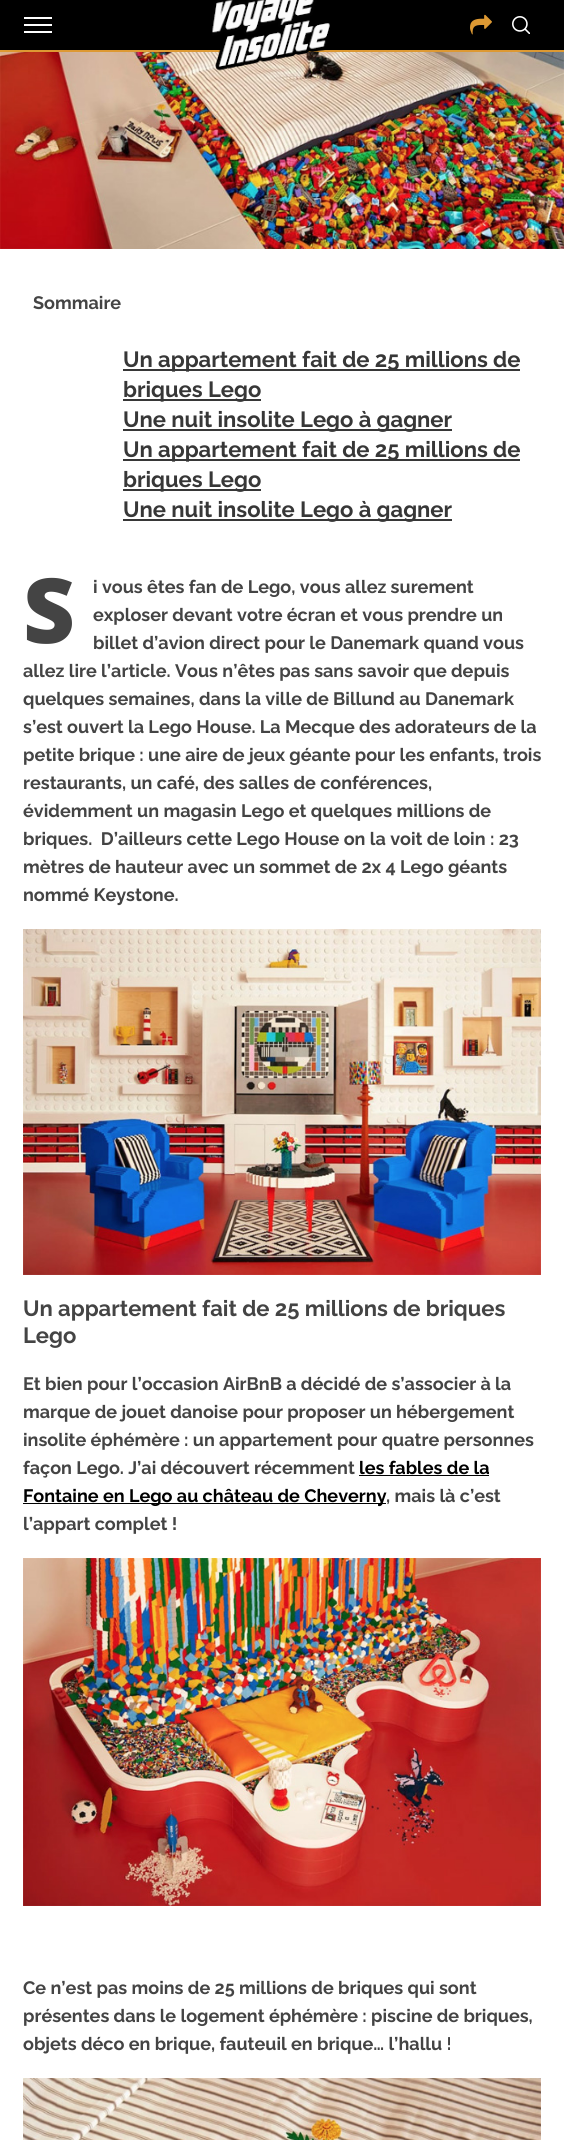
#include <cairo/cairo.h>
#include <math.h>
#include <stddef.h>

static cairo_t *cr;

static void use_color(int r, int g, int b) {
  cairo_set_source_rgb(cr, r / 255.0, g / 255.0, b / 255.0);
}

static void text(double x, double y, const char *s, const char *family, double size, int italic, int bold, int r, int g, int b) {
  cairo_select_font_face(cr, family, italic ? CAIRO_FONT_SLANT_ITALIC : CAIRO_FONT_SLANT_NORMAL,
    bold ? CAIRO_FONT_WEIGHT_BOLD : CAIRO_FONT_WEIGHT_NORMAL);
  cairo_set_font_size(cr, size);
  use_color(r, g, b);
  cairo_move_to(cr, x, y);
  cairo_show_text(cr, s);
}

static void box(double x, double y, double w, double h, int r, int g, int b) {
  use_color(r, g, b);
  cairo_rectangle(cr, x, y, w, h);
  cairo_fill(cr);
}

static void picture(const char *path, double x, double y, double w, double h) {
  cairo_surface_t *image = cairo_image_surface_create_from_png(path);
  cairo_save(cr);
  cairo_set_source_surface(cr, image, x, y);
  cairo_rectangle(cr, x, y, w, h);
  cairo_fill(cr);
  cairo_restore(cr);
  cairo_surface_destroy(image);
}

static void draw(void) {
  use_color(255, 255, 255);
  cairo_paint(cr);
  box(0, 0, 564, 50, 0, 0, 0);
  box(0, 50, 564, 2, 221, 153, 51);
  box(24, 24, 28, 2, 255, 255, 255);
  box(24, 17, 28, 2, 255, 255, 255);
  box(24, 31, 28, 2, 255, 255, 255);
  picture("img_04.png", 0, 52, 564, 197);
  picture("img_01.png", 212, 0, 118, 71);
  picture("img_02.png", 470, 14, 22, 21);
  picture("img_03.png", 512, 16, 18, 18);
  box(123, 369, 397, 2, 55, 55, 55);
  box(123, 399, 138, 2, 55, 55, 55);
  box(123, 429, 329, 2, 55, 55, 55);
  box(123, 459, 397, 2, 55, 55, 55);
  box(123, 489, 138, 2, 55, 55, 55);
  box(123, 519, 329, 2, 55, 55, 55);
  picture("img_05.png", 23, 929, 518, 346);
  box(359, 1475, 130, 1, 0, 0, 0);
  box(23, 1503, 363, 1, 0, 0, 0);
  picture("img_06.png", 23, 1558, 518, 348);
  picture("img_07.png", 23, 2078, 518, 62);
  text(33, 309, "Sommaire", "Raleway Thin", 18, 0, 0, 68, 68, 68);
  text(123, 367, "Un appartement fait de 25 millions de", "Raleway Thin", 22, 0, 0, 55, 55, 55);
  text(123, 397, "briques Lego", "Raleway Thin", 22, 0, 0, 55, 55, 55);
  text(123, 427, "Une nuit insolite Lego à gagner", "Raleway Thin", 22, 0, 0, 55, 55, 55);
  text(123, 457, "Un appartement fait de 25 millions de", "Raleway Thin", 22, 0, 0, 55, 55, 55);
  text(123, 487, "briques Lego", "Raleway Thin", 22, 0, 0, 55, 55, 55);
  text(123, 517, "Une nuit insolite Lego à gagner", "Raleway Thin", 22, 0, 0, 55, 55, 55);
  text(23, 643, "S", "Noto Sans Black", 90, 0, 0, 68, 68, 68);
  text(93, 593, "i vous êtes fan de Lego, vous allez surement", "Raleway Thin", 18, 0, 0, 68, 68, 68);
  text(93, 621, "exploser devant votre écran et vous prendre un", "Raleway Thin", 18, 0, 0, 68, 68, 68);
  text(93, 649, "billet d’avion direct pour le Danemark quand vous", "Raleway Thin", 18, 0, 0, 68, 68, 68);
  text(23, 677, "allez lire l’article. Vous n’êtes pas sans savoir que depuis", "Raleway Thin", 18, 0, 0, 68, 68, 68);
  text(23, 705, "quelques semaines, dans la ville de Billund au Danemark", "Raleway Thin", 18, 0, 0, 68, 68, 68);
  text(23, 733, "s’est ouvert la Lego House. La Mecque des adorateurs de la", "Raleway Thin", 18, 0, 0, 68, 68, 68);
  text(23, 761, "petite brique : une aire de jeux géante pour les enfants, trois", "Raleway Thin", 18, 0, 0, 68, 68, 68);
  text(23, 789, "restaurants, un café, des salles de conférences,", "Raleway Thin", 18, 0, 0, 68, 68, 68);
  text(23, 817, "évidemment un magasin Lego et quelques millions de", "Raleway Thin", 18, 0, 0, 68, 68, 68);
  text(23, 845, "briques.  D’ailleurs cette Lego House on la voit de loin : 23", "Raleway Thin", 18, 0, 0, 68, 68, 68);
  text(23, 873, "mètres de hauteur avec un sommet de 2x 4 Lego géants", "Raleway Thin", 18, 0, 0, 68, 68, 68);
  text(23, 901, "nommé Keystone.", "Raleway Thin", 18, 0, 0, 68, 68, 68);
  text(23, 1316, "Un appartement fait de 25 millions de briques", "Raleway Thin", 22, 0, 0, 68, 68, 68);
  text(23, 1343, "Lego", "Raleway Thin", 22, 0, 0, 68, 68, 68);
  text(23, 1390, "Et bien pour l’occasion AirBnB a décidé de s’associer à la", "Raleway Thin", 18, 0, 0, 68, 68, 68);
  text(23, 1418, "marque de jouet danoise pour proposer un hébergement", "Raleway Thin", 18, 0, 0, 68, 68, 68);
  text(23, 1446, "insolite éphémère : un appartement pour quatre personnes", "Raleway Thin", 18, 0, 0, 68, 68, 68);
  text(23, 1474, "façon Lego. J’ai découvert récemment", "Raleway Thin", 18, 0, 0, 68, 68, 68);
  text(359, 1474, "les fables de la", "Raleway Thin", 18, 0, 0, 0, 0, 0);
  text(23, 1502, "Fontaine en Lego au château de Cheverny", "Raleway Thin", 18, 0, 0, 0, 0, 0);
  text(386, 1502, ", mais là c’est", "Raleway Thin", 18, 0, 0, 68, 68, 68);
  text(23, 1530, "l’appart complet !", "Raleway Thin", 18, 0, 0, 68, 68, 68);
  text(23, 1994, "Ce n’est pas moins de 25 millions de briques qui sont", "Raleway Thin", 18, 0, 0, 68, 68, 68);
  text(23, 2022, "présentes dans le logement éphémère : piscine de briques,", "Raleway Thin", 18, 0, 0, 68, 68, 68);
  text(23, 2050, "objets déco en brique, fauteuil en brique… l’hallu !", "Raleway Thin", 18, 0, 0, 68, 68, 68);
}

int main(void) {
  cairo_surface_t *surface = cairo_image_surface_create(CAIRO_FORMAT_RGB24, 564, 2140);
  cr = cairo_create(surface);
  cairo_font_options_t *options = cairo_font_options_create();
  cairo_font_options_set_hint_metrics(options, CAIRO_HINT_METRICS_OFF);
  cairo_font_options_set_hint_style(options, CAIRO_HINT_STYLE_NONE);
  cairo_set_font_options(cr, options);
  cairo_set_miter_limit(cr, 4);
  draw();
  cairo_surface_write_to_png(surface, "out.png");
  cairo_font_options_destroy(options);
  cairo_destroy(cr);
  cairo_surface_destroy(surface);
  return 0;
}
